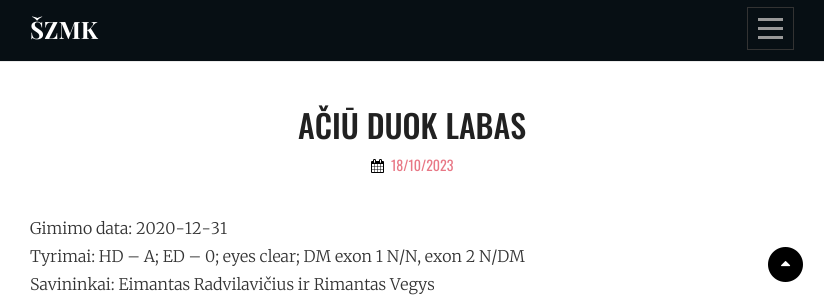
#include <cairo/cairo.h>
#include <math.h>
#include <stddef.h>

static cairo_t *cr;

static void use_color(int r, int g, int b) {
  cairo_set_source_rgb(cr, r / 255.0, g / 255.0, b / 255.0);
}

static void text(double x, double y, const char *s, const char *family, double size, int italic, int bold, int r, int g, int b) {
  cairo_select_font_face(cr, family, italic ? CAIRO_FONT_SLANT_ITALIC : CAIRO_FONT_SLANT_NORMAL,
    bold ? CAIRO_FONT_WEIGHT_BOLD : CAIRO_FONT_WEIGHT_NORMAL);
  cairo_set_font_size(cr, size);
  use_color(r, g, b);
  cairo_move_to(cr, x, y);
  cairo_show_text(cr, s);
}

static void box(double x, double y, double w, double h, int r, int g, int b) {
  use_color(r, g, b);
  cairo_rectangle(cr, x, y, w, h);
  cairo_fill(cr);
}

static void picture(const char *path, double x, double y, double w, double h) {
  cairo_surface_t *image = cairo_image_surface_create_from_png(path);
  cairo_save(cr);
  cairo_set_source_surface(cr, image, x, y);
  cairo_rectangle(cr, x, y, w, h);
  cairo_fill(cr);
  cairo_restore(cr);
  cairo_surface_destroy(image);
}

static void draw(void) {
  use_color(255, 255, 255);
  cairo_paint(cr);
  box(0, 0, 824, 61, 7, 15, 20);
  cairo_rectangle(cr, 747.5, 7.5, 46, 42);
  use_color(51, 51, 51);
  cairo_set_line_width(cr, 1);
  cairo_stroke(cr);
  box(758, 18, 25, 3, 153, 153, 153);
  box(758, 27, 25, 3, 153, 153, 153);
  box(758, 36, 25, 3, 153, 153, 153);
  box(0, 61, 824, 1, 235, 235, 235);
  picture("img_01.png", 371, 159, 13, 14);
  use_color(0, 0, 0);
  cairo_arc(cr, 785.5, 264.5, 17.5, 0, 2 * M_PI);
  cairo_fill(cr);
  picture("img_02.png", 781, 261, 10, 6);
  text(30, 39, "ŠZMK", "Playfair Display", 24, 0, 1, 255, 255, 255);
  text(298, 139, "AČIŪ DUOK LABAS", "Oswald Medium", 32, 0, 0, 33, 33, 33);
  text(391, 171, "18/10/2023", "Oswald", 14, 0, 0, 232, 119, 133);
  text(30, 234, "Gimimo data: 2020-12-31", "Merriweather Light", 16, 0, 0, 51, 51, 51);
  text(30, 262, "Tyrimai: HD – A; ED – 0; eyes clear; DM exon 1 N/N, exon 2 N/DM", "Merriweather Light", 16, 0, 0, 51, 51, 51);
  text(30, 290, "Savininkai: Eimantas Radvilavičius ir Rimantas Vegys", "Merriweather Light", 16, 0, 0, 51, 51, 51);
}

int main(void) {
  cairo_surface_t *surface = cairo_image_surface_create(CAIRO_FORMAT_RGB24, 824, 303);
  cr = cairo_create(surface);
  cairo_font_options_t *options = cairo_font_options_create();
  cairo_font_options_set_hint_metrics(options, CAIRO_HINT_METRICS_OFF);
  cairo_font_options_set_hint_style(options, CAIRO_HINT_STYLE_NONE);
  cairo_set_font_options(cr, options);
  cairo_set_miter_limit(cr, 4);
  draw();
  cairo_surface_write_to_png(surface, "out.png");
  cairo_font_options_destroy(options);
  cairo_destroy(cr);
  cairo_surface_destroy(surface);
  return 0;
}
